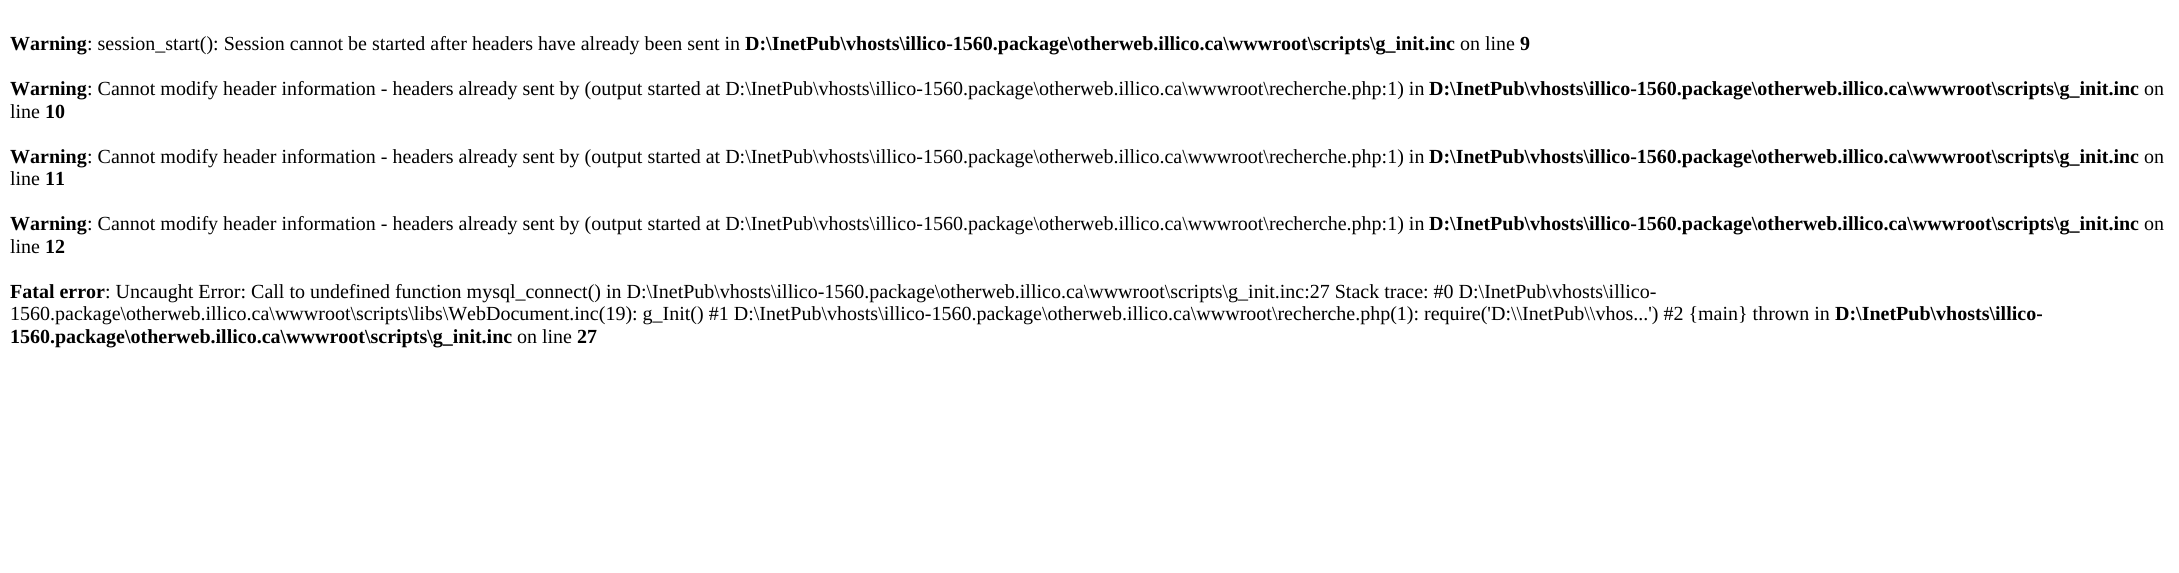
#include <cairo/cairo.h>
#include <math.h>
#include <stddef.h>

static cairo_t *cr;

static void use_color(int r, int g, int b) {
  cairo_set_source_rgb(cr, r / 255.0, g / 255.0, b / 255.0);
}

static void text(double x, double y, const char *s, const char *family, double size, int italic, int bold, int r, int g, int b) {
  cairo_select_font_face(cr, family, italic ? CAIRO_FONT_SLANT_ITALIC : CAIRO_FONT_SLANT_NORMAL,
    bold ? CAIRO_FONT_WEIGHT_BOLD : CAIRO_FONT_WEIGHT_NORMAL);
  cairo_set_font_size(cr, size);
  use_color(r, g, b);
  cairo_move_to(cr, x, y);
  cairo_show_text(cr, s);
}

static void draw(void) {
  use_color(255, 255, 255);
  cairo_paint(cr);
  text(10, 50, "Warning", "Liberation Serif", 20, 0, 1, 0, 0, 0);
  text(87, 50, ": session_start(): Session cannot be started after headers have already been sent in", "Liberation Serif", 20, 0, 0, 0, 0, 0);
  text(745, 50, "D:\\InetPub\\vhosts\\illico-1560.package\\otherweb.illico.ca\\wwwroot\\scripts\\g_init.inc", "Liberation Serif", 20, 0, 1, 0, 0, 0);
  text(1460, 50, "on line", "Liberation Serif", 20, 0, 0, 0, 0, 0);
  text(1520, 50, "9", "Liberation Serif", 20, 0, 1, 0, 0, 0);
  text(10, 95, "Warning", "Liberation Serif", 20, 0, 1, 0, 0, 0);
  text(87, 95, ": Cannot modify header information - headers already sent by (output started at D:\\InetPub\\vhosts\\illico-1560.package\\otherweb.illico.ca\\wwwroot\\recherche.php:1) in", "Liberation Serif", 20, 0, 0, 0, 0, 0);
  text(1429, 95, "D:\\InetPub\\vhosts\\illico-1560.package\\otherweb.illico.ca\\wwwroot\\scripts\\g_init.inc", "Liberation Serif", 20, 0, 1, 0, 0, 0);
  text(2144, 95, "on", "Liberation Serif", 20, 0, 0, 0, 0, 0);
  text(10, 118, "line", "Liberation Serif", 20, 0, 0, 0, 0, 0);
  text(45, 118, "10", "Liberation Serif", 20, 0, 1, 0, 0, 0);
  text(10, 163, "Warning", "Liberation Serif", 20, 0, 1, 0, 0, 0);
  text(87, 163, ": Cannot modify header information - headers already sent by (output started at D:\\InetPub\\vhosts\\illico-1560.package\\otherweb.illico.ca\\wwwroot\\recherche.php:1) in", "Liberation Serif", 20, 0, 0, 0, 0, 0);
  text(1429, 163, "D:\\InetPub\\vhosts\\illico-1560.package\\otherweb.illico.ca\\wwwroot\\scripts\\g_init.inc", "Liberation Serif", 20, 0, 1, 0, 0, 0);
  text(2144, 163, "on", "Liberation Serif", 20, 0, 0, 0, 0, 0);
  text(10, 185, "line", "Liberation Serif", 20, 0, 0, 0, 0, 0);
  text(45, 185, "11", "Liberation Serif", 20, 0, 1, 0, 0, 0);
  text(10, 230, "Warning", "Liberation Serif", 20, 0, 1, 0, 0, 0);
  text(87, 230, ": Cannot modify header information - headers already sent by (output started at D:\\InetPub\\vhosts\\illico-1560.package\\otherweb.illico.ca\\wwwroot\\recherche.php:1) in", "Liberation Serif", 20, 0, 0, 0, 0, 0);
  text(1429, 230, "D:\\InetPub\\vhosts\\illico-1560.package\\otherweb.illico.ca\\wwwroot\\scripts\\g_init.inc", "Liberation Serif", 20, 0, 1, 0, 0, 0);
  text(2144, 230, "on", "Liberation Serif", 20, 0, 0, 0, 0, 0);
  text(10, 253, "line", "Liberation Serif", 20, 0, 0, 0, 0, 0);
  text(45, 253, "12", "Liberation Serif", 20, 0, 1, 0, 0, 0);
  text(10, 298, "Fatal error", "Liberation Serif", 20, 0, 1, 0, 0, 0);
  text(105, 298, ": Uncaught Error: Call to undefined function mysql_connect() in D:\\InetPub\\vhosts\\illico-1560.package\\otherweb.illico.ca\\wwwroot\\scripts\\g_init.inc:27 Stack trace: #0 D:\\InetPub\\vhosts\\illico-", "Liberation Serif", 20, 0, 0, 0, 0, 0);
  text(10, 320, "1560.package\\otherweb.illico.ca\\wwwroot\\scripts\\libs\\WebDocument.inc(19): g_Init() #1 D:\\InetPub\\vhosts\\illico-1560.package\\otherweb.illico.ca\\wwwroot\\recherche.php(1): require('D:\\\\InetPub\\\\vhos...') #2 {main} thrown in", "Liberation Serif", 20, 0, 0, 0, 0, 0);
  text(1835, 320, "D:\\InetPub\\vhosts\\illico-", "Liberation Serif", 20, 0, 1, 0, 0, 0);
  text(10, 343, "1560.package\\otherweb.illico.ca\\wwwroot\\scripts\\g_init.inc", "Liberation Serif", 20, 0, 1, 0, 0, 0);
  text(517, 343, "on line", "Liberation Serif", 20, 0, 0, 0, 0, 0);
  text(577, 343, "27", "Liberation Serif", 20, 0, 1, 0, 0, 0);
}

int main(void) {
  cairo_surface_t *surface = cairo_image_surface_create(CAIRO_FORMAT_RGB24, 2179, 573);
  cr = cairo_create(surface);
  cairo_font_options_t *options = cairo_font_options_create();
  cairo_font_options_set_hint_metrics(options, CAIRO_HINT_METRICS_OFF);
  cairo_font_options_set_hint_style(options, CAIRO_HINT_STYLE_NONE);
  cairo_set_font_options(cr, options);
  cairo_set_miter_limit(cr, 4);
  draw();
  cairo_surface_write_to_png(surface, "out.png");
  cairo_font_options_destroy(options);
  cairo_destroy(cr);
  cairo_surface_destroy(surface);
  return 0;
}
